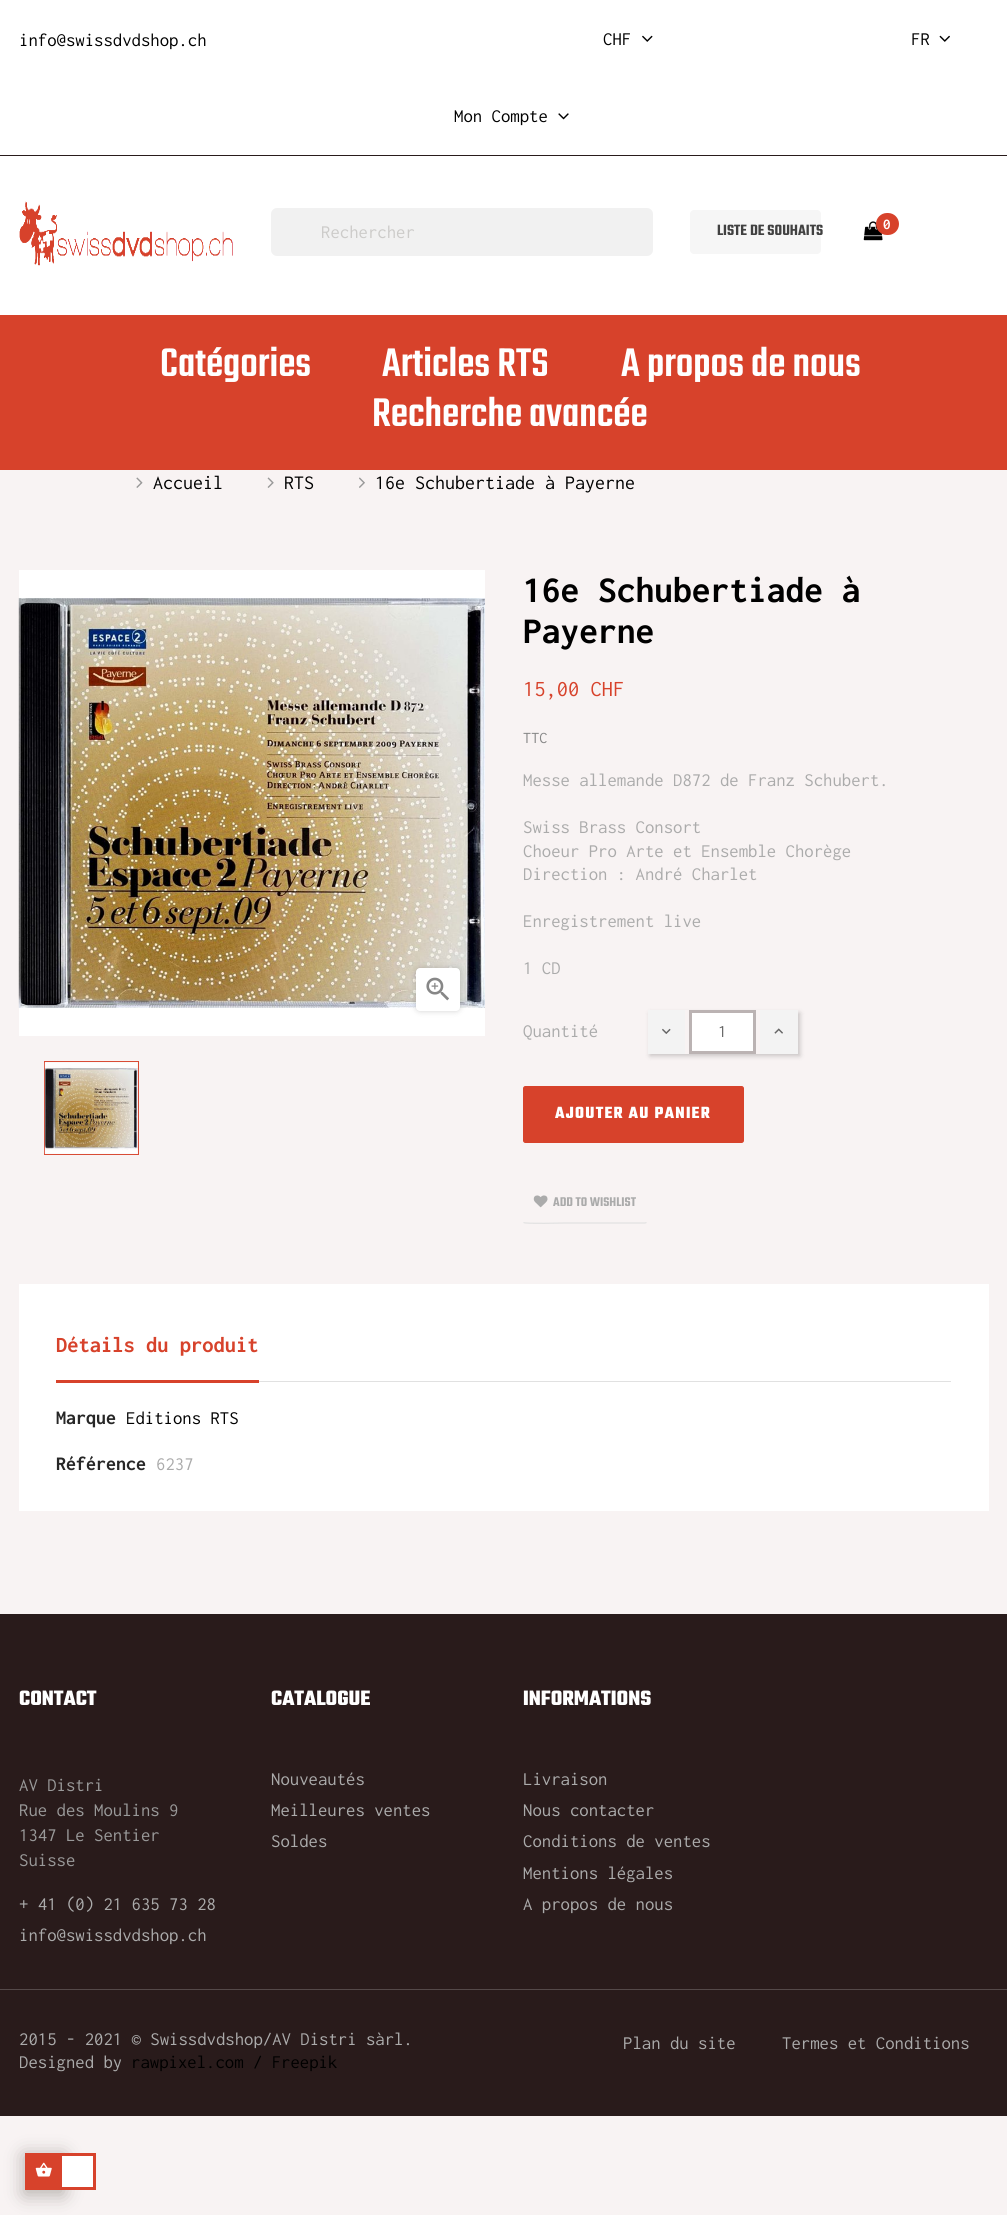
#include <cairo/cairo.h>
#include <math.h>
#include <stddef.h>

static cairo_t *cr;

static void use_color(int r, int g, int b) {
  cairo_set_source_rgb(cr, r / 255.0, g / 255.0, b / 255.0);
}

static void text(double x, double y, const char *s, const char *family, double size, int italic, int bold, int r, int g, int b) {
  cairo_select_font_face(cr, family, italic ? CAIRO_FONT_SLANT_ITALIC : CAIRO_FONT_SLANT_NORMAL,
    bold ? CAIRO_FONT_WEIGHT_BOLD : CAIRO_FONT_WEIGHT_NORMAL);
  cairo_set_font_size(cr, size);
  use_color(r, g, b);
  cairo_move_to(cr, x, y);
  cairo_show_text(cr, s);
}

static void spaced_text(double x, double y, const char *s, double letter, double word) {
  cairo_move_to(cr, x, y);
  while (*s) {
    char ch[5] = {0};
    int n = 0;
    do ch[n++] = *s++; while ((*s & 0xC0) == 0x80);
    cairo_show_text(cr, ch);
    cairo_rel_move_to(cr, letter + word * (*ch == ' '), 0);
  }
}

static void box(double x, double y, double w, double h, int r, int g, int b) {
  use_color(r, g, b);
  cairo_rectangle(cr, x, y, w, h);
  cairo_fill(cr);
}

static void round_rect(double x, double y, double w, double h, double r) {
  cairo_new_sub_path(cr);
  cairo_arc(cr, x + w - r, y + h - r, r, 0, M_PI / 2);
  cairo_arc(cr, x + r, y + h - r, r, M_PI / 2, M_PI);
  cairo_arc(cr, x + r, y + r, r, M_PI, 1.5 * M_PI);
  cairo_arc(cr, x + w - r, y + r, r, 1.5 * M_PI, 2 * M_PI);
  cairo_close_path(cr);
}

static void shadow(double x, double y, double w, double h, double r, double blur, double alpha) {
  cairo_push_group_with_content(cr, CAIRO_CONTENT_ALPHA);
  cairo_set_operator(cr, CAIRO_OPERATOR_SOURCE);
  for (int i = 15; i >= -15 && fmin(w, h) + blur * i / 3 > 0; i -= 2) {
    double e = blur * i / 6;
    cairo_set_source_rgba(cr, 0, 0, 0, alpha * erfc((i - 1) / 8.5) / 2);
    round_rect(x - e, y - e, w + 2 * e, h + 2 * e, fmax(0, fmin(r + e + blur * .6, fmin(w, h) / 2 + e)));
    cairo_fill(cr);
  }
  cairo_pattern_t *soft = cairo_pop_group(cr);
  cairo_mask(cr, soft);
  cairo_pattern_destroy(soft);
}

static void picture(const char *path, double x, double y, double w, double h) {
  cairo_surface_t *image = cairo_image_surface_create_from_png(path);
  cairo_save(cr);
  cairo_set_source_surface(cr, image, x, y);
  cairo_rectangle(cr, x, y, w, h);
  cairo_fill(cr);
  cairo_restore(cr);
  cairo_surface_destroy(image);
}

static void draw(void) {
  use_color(248, 243, 243);
  cairo_paint(cr);
  box(0, 0, 1007, 315, 255, 255, 255);
  picture("img_01.png", 642, 35, 11, 7);
  picture("img_02.png", 939, 35, 11, 7);
  picture("img_03.png", 558, 113, 11, 7);
  box(0, 155, 1007, 1, 41, 27, 27);
  picture("img_04.png", 19, 201, 214, 65);
  use_color(241, 241, 241);
  round_rect(271, 208, 382, 48, 6);
  cairo_fill(cr);
  use_color(246, 246, 246);
  round_rect(690, 210, 131, 44, 4);
  cairo_fill(cr);
  picture("img_05.png", 863, 221, 20, 20);
  use_color(215, 66, 43);
  round_rect(876, 213, 23, 22, 11);
  cairo_fill(cr);
  box(0, 315, 1007, 155, 215, 66, 43);
  picture("img_06.png", 136, 477, 7, 11);
  picture("img_07.png", 267, 477, 7, 11);
  picture("img_08.png", 359, 477, 6, 11);
  box(19, 570, 466, 466, 255, 255, 255);
  picture("img_09.png", 18, 598, 467, 410);
  use_color(0, 0, 0);
  shadow(416, 968, 44, 43, 4, 3, 0.18);
  use_color(255, 255, 255);
  round_rect(416, 968, 44, 43, 4);
  cairo_fill(cr);
  picture("img_10.png", 426, 977, 23, 24);
  cairo_rectangle(cr, 44.5, 1061.5, 94, 93);
  use_color(217, 75, 53);
  cairo_set_line_width(cr, 1);
  cairo_stroke(cr);
  picture("img_11.png", 44, 1062, 94, 92);
  cairo_save(cr);
  cairo_set_fill_rule(cr, CAIRO_FILL_RULE_EVEN_ODD);
  cairo_new_path(cr);
  cairo_move_to(cr, 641, 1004);
  cairo_line_to(cr, 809, 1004);
  cairo_line_to(cr, 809, 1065);
  cairo_line_to(cr, 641, 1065);
  cairo_close_path(cr);
  cairo_move_to(cr, 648, 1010);
  cairo_line_to(cr, 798, 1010);
  cairo_line_to(cr, 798, 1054);
  cairo_line_to(cr, 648, 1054);
  cairo_close_path(cr);
  cairo_clip(cr);
  use_color(0, 0, 0);
  shadow(650, 1013, 150, 43, 0, 2.5, 0.2);
  cairo_restore(cr);
  box(648, 1010, 37, 44, 243, 243, 243);
  picture("img_12.png", 662, 1028, 9, 6);
  box(760, 1010, 38, 44, 243, 243, 243);
  picture("img_13.png", 774, 1028, 9, 6);
  use_color(255, 255, 255);
  cairo_rectangle(cr, 690.5, 1011.5, 64, 41);
  cairo_fill_preserve(cr);
  use_color(187, 179, 179);
  cairo_set_line_width(cr, 3);
  cairo_stroke(cr);
  use_color(215, 66, 43);
  round_rect(523.5, 1086.5, 220, 56, 2);
  cairo_fill_preserve(cr);
  cairo_set_line_width(cr, 1);
  cairo_stroke(cr);
  cairo_new_path(cr);
  cairo_move_to(cr, 646.5, 1222.5);
  cairo_line_to(cr, 645, 1223);
  cairo_line_to(cr, 565, 1223);
  cairo_curve_to(cr, 562.5, 1223, 525, 1224, 523.5, 1222.5);
  use_color(225, 225, 225);
  cairo_set_line_width(cr, 1.2);
  cairo_stroke(cr);
  picture("img_14.png", 533, 1195, 15, 13);
  box(19, 1284, 970, 227, 255, 255, 255);
  box(259, 1381, 692, 1, 225, 225, 225);
  box(56, 1380, 203, 3, 215, 66, 43);
  box(0, 1614, 1007, 375, 41, 27, 27);
  box(0, 1990, 1007, 126, 41, 27, 27);
  box(0, 1989, 1007, 1, 84, 73, 73);
  use_color(142, 137, 130);
  shadow(24, 2155, 40, 40, 0, 9.5, 0.62);
  box(25, 2153, 34, 37, 215, 66, 43);
  picture("img_15.png", 35, 2162, 17, 15);
  use_color(255, 255, 255);
  cairo_rectangle(cr, 60.5, 2154.5, 34, 34);
  cairo_fill_preserve(cr);
  use_color(215, 66, 43);
  cairo_set_line_width(cr, 3);
  cairo_stroke(cr);
  text(19, 46, "info@swissdvdshop.ch", "Inconsolata", 18.75, 0, 0, 0, 0, 0);
  text(603, 45, "CHF", "Inconsolata", 18.75, 0, 0, 0, 0, 0);
  text(911, 45, "FR", "Inconsolata", 18.75, 0, 0, 0, 0, 0);
  text(454, 122, "Mon Compte", "Inconsolata", 18.75, 0, 0, 0, 0, 0);
  text(321, 238, "Rechercher", "Inconsolata", 18.75, 0, 0, 204, 203, 201);
  text(717, 235, "LISTE DE SOUHAITS", "Teko SemiBold", 16.25, 0, 0, 65, 65, 65);
  text(883, 229, "0", "Inconsolata", 15, 0, 1, 255, 255, 255);
  text(160, 376, "Catégories", "Teko Medium", 43.75, 0, 0, 255, 255, 255);
  text(382, 376, "Articles RTS", "Teko Medium", 43.75, 0, 0, 255, 255, 255);
  text(621, 376, "A propos de nous", "Teko Medium", 43.75, 0, 0, 255, 255, 255);
  text(372, 426, "Recherche avancée", "Teko Medium", 43.75, 0, 0, 255, 255, 255);
  text(153, 489, "Accueil", "Inconsolata", 20, 0, 0, 0, 0, 0);
  text(284, 489, "RTS", "Inconsolata", 20, 0, 0, 0, 0, 0);
  text(375, 489, "16e Schubertiade à Payerne", "Inconsolata", 20, 0, 0, 0, 0, 0);
  text(523, 602, "16e Schubertiade à", "Inconsolata", 37.5, 0, 1, 0, 0, 0);
  text(523, 643, "Payerne", "Inconsolata", 37.5, 0, 1, 0, 0, 0);
  text(523, 696, "15,00 CHF", "Inconsolata", 22.5, 0, 0, 215, 66, 43);
  text(523, 743, "TTC", "Inconsolata", 16.25, 0, 0, 135, 135, 135);
  text(523, 786, "Messe allemande D872 de Franz Schubert.", "Inconsolata", 18.75, 0, 0, 171, 171, 171);
  text(523, 833, "Swiss Brass Consort", "Inconsolata", 18.75, 0, 0, 171, 171, 171);
  text(523, 857, "Choeur Pro Arte et Ensemble Chorège", "Inconsolata", 18.75, 0, 0, 171, 171, 171);
  text(523, 880, "Direction : André Charlet", "Inconsolata", 18.75, 0, 0, 171, 171, 171);
  text(523, 927, "Enregistrement live", "Inconsolata", 18.75, 0, 0, 171, 171, 171);
  text(523, 974, "1 CD", "Inconsolata", 18.75, 0, 0, 171, 171, 171);
  text(523, 1037, "Quantité", "Inconsolata", 18.75, 0, 0, 171, 171, 171);
  text(718, 1037, "1", "Inconsolata", 17.5, 0, 0, 102, 102, 102);
  cairo_select_font_face(cr, "Teko", CAIRO_FONT_SLANT_NORMAL, CAIRO_FONT_WEIGHT_BOLD);
  use_color(255, 255, 255);
  spaced_text(555, 1118, "AJOUTER AU PANIER", 1.25, 0);
  text(553, 1206, "ADD TO WISHLIST", "Teko SemiBold", 13.75, 0, 0, 171, 171, 171);
  text(56, 1352, "Détails du produit", "Inconsolata", 22.5, 0, 1, 215, 66, 43);
  text(56, 1424, "Marque", "Inconsolata", 20, 0, 1, 39, 39, 39);
  text(126, 1424, "Editions RTS", "Inconsolata", 18.75, 0, 0, 0, 0, 0);
  text(56, 1470, "Référence", "Inconsolata", 20, 0, 1, 39, 39, 39);
  text(156, 1470, "6237", "Inconsolata", 18.75, 0, 0, 171, 171, 171);
  text(19, 1705, "CONTACT", "Teko", 22.5, 0, 1, 255, 255, 255);
  text(19, 1791, "AV Distri", "Inconsolata", 18.75, 0, 0, 153, 153, 153);
  text(19, 1816, "Rue des Moulins 9", "Inconsolata", 18.75, 0, 0, 153, 153, 153);
  text(19, 1841, "1347 Le Sentier", "Inconsolata", 18.75, 0, 0, 153, 153, 153);
  text(19, 1866, "Suisse", "Inconsolata", 18.75, 0, 0, 153, 153, 153);
  text(19, 1910, "+ 41 (0) 21 635 73 28", "Inconsolata", 18.75, 0, 0, 171, 171, 171);
  text(19, 1941, "info@swissdvdshop.ch", "Inconsolata", 18.75, 0, 0, 171, 171, 171);
  text(271, 1705, "CATALOGUE", "Teko", 22.5, 0, 1, 255, 255, 255);
  text(271, 1785, "Nouveautés", "Inconsolata", 18.75, 0, 0, 171, 171, 171);
  text(271, 1816, "Meilleures ventes", "Inconsolata", 18.75, 0, 0, 171, 171, 171);
  text(271, 1847, "Soldes", "Inconsolata", 18.75, 0, 0, 171, 171, 171);
  text(523, 1705, "INFORMATIONS", "Teko", 22.5, 0, 1, 255, 255, 255);
  text(523, 1785, "Livraison", "Inconsolata", 18.75, 0, 0, 171, 171, 171);
  text(523, 1816, "Nous contacter", "Inconsolata", 18.75, 0, 0, 171, 171, 171);
  text(523, 1847, "Conditions de ventes", "Inconsolata", 18.75, 0, 0, 171, 171, 171);
  text(523, 1879, "Mentions légales", "Inconsolata", 18.75, 0, 0, 171, 171, 171);
  text(523, 1910, "A propos de nous", "Inconsolata", 18.75, 0, 0, 171, 171, 171);
  text(19, 2045, "2015 - 2021 © Swissdvdshop/AV Distri sàrl.", "Inconsolata", 18.75, 0, 0, 171, 171, 171);
  text(19, 2068, "Designed by", "Inconsolata", 18.75, 0, 0, 171, 171, 171);
  text(131, 2068, "rawpixel.com / Freepik", "Inconsolata", 18.75, 0, 0, 0, 0, 0);
  text(623, 2049, "Plan du site", "Inconsolata", 18.75, 0, 0, 171, 171, 171);
  text(782, 2049, "Termes et Conditions", "Inconsolata", 18.75, 0, 0, 171, 171, 171);
}

int main(void) {
  cairo_surface_t *surface = cairo_image_surface_create(CAIRO_FORMAT_RGB24, 1007, 2215);
  cr = cairo_create(surface);
  cairo_font_options_t *options = cairo_font_options_create();
  cairo_font_options_set_hint_metrics(options, CAIRO_HINT_METRICS_OFF);
  cairo_font_options_set_hint_style(options, CAIRO_HINT_STYLE_NONE);
  cairo_set_font_options(cr, options);
  cairo_set_miter_limit(cr, 4);
  draw();
  cairo_surface_write_to_png(surface, "out.png");
  cairo_font_options_destroy(options);
  cairo_destroy(cr);
  cairo_surface_destroy(surface);
  return 0;
}
